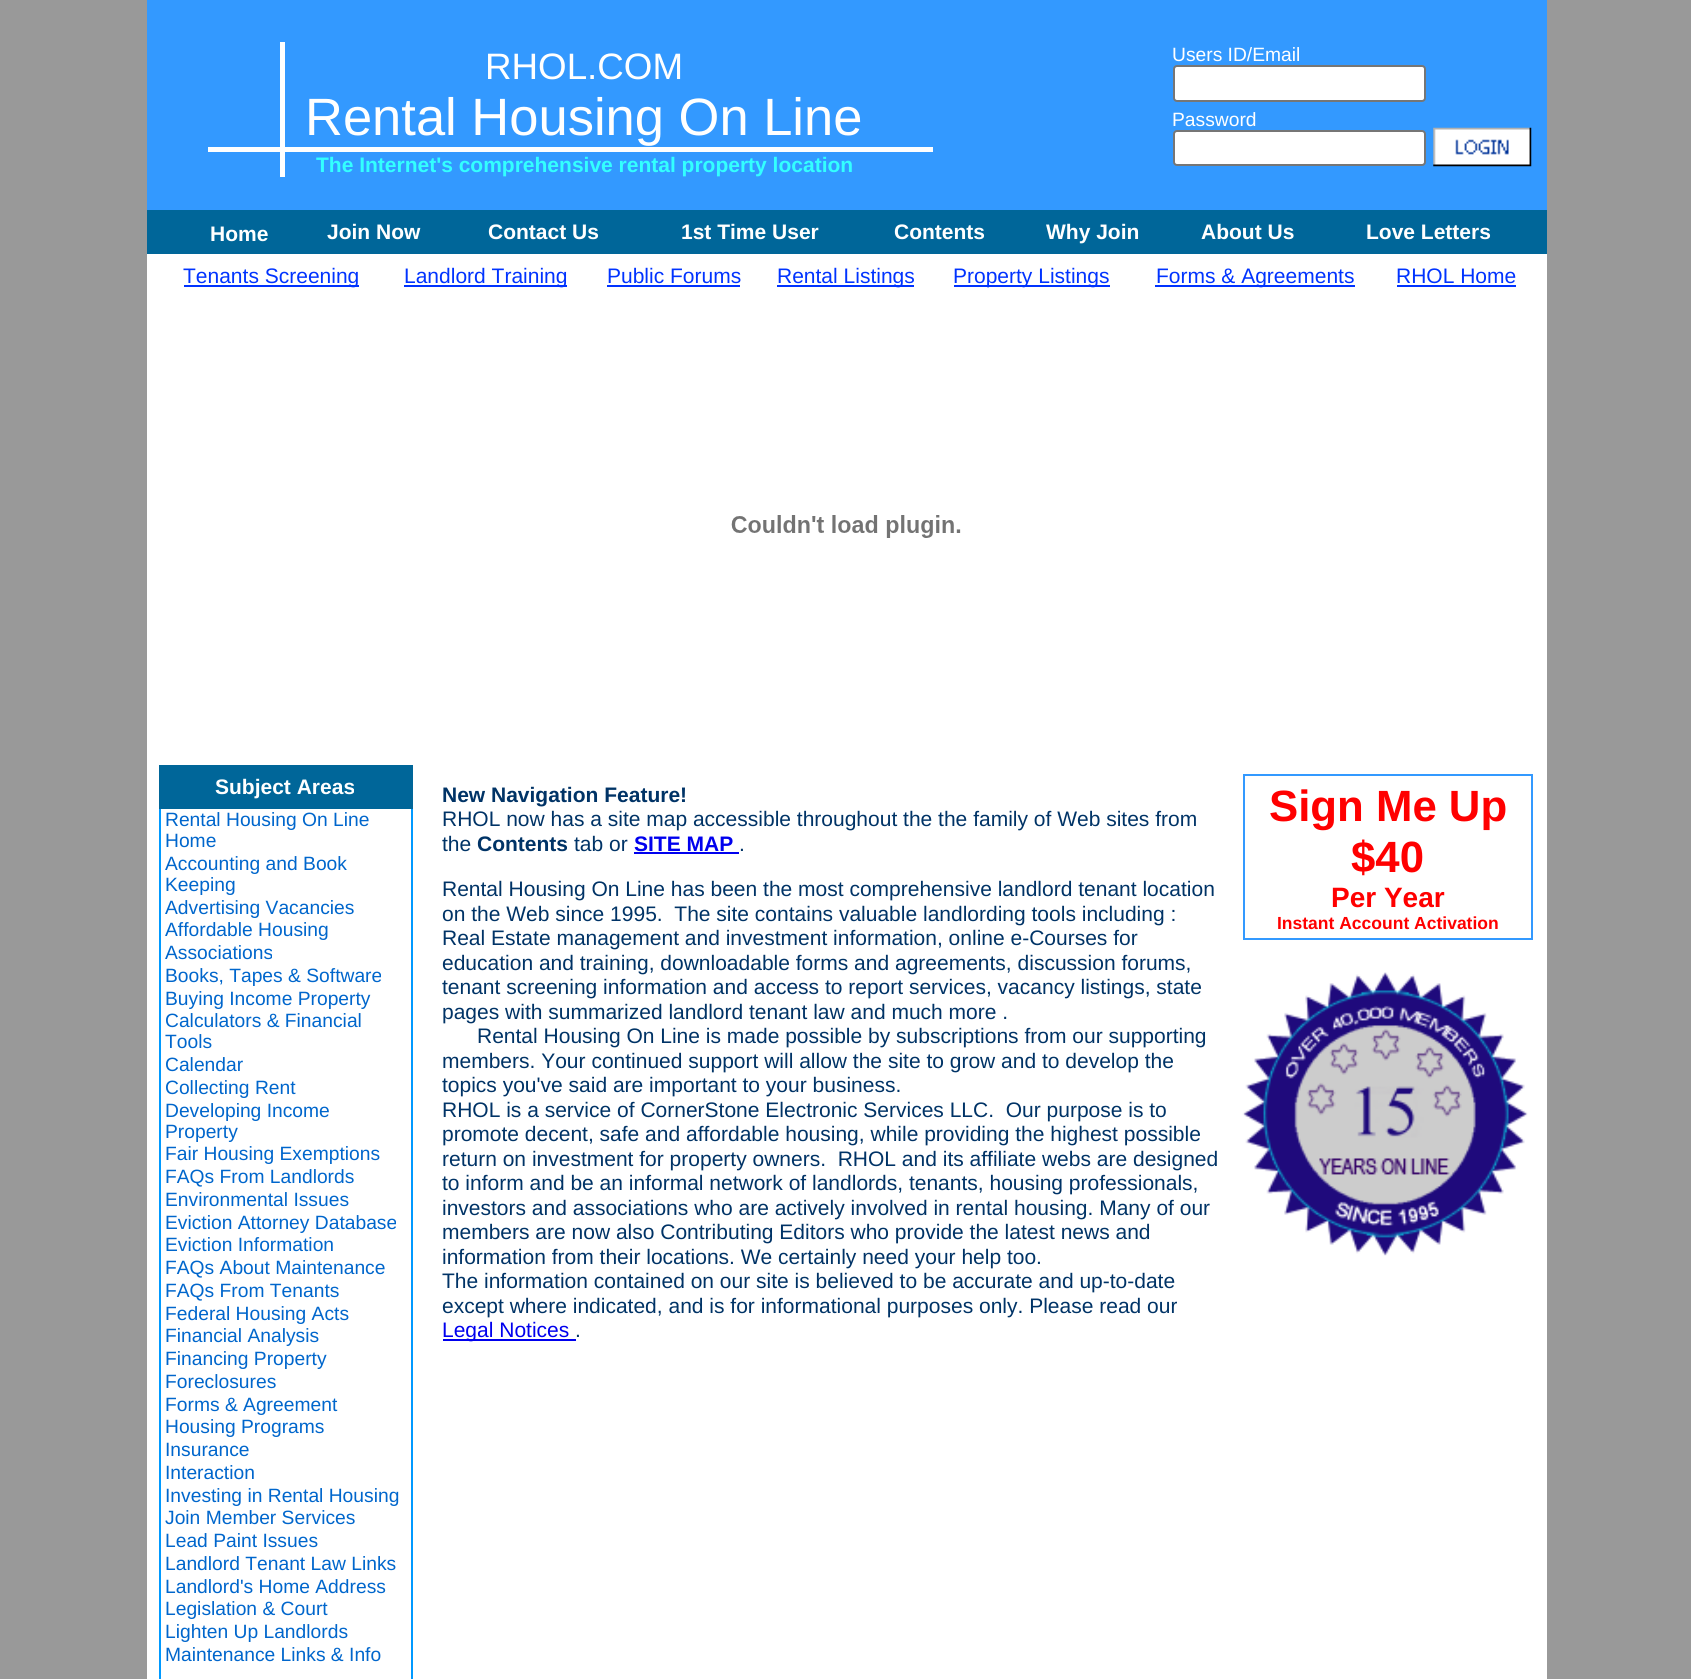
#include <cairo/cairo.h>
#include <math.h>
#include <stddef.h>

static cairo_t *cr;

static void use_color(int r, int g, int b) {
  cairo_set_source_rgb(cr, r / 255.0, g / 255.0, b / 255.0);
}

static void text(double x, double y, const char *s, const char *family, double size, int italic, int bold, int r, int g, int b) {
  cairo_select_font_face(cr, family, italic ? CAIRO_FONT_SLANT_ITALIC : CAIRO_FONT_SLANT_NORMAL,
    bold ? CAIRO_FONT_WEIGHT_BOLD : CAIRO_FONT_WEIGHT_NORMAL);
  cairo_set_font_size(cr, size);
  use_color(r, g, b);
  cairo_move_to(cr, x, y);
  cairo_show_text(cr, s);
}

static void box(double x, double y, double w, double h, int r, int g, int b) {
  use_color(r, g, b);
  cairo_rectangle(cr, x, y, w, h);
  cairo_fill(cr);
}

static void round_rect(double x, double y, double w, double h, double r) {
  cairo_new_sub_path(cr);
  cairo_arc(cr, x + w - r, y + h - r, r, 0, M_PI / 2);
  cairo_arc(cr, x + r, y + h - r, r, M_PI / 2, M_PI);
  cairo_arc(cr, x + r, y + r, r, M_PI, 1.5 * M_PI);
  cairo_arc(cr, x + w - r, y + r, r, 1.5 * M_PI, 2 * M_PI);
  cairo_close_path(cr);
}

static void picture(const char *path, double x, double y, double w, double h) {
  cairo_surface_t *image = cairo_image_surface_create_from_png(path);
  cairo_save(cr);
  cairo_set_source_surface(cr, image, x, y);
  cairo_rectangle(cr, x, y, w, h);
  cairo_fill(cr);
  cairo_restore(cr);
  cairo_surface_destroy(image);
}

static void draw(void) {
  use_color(153, 153, 153);
  cairo_paint(cr);
  box(147, 0, 1400, 210, 51, 153, 255);
  box(280, 42, 5, 135, 255, 255, 255);
  box(208, 147, 72, 5, 255, 255, 255);
  box(285, 147, 648, 5, 255, 255, 255);
  round_rect(1174, 66, 251, 35, 3);
  cairo_fill_preserve(cr);
  use_color(118, 118, 118);
  cairo_stroke(cr);
  use_color(255, 255, 255);
  round_rect(1174, 131, 251, 34, 3);
  cairo_fill_preserve(cr);
  use_color(118, 118, 118);
  cairo_stroke(cr);
  picture("img_01.png", 1433, 127, 99, 40);
  box(147, 210, 1400, 44, 0, 102, 153);
  box(147, 254, 1400, 1425, 255, 255, 255);
  box(184, 285, 175, 2, 0, 51, 255);
  box(404, 285, 163, 2, 0, 51, 255);
  box(607, 285, 133, 2, 0, 51, 255);
  box(777, 285, 137, 2, 0, 51, 255);
  box(954, 285, 156, 2, 0, 51, 255);
  box(1155, 285, 200, 2, 0, 51, 255);
  box(1397, 285, 119, 2, 0, 51, 255);
  picture("img_02.png", 731, 515, 230, 23);
  box(159, 765, 254, 44, 0, 102, 153);
  box(411, 809, 2, 870, 0, 153, 255);
  box(159, 809, 2, 870, 0, 153, 255);
  box(634, 852, 105, 2, 0, 0, 238);
  box(443, 1339, 133, 2, 0, 0, 238);
  cairo_rectangle(cr, 1244, 775, 288, 164);
  use_color(51, 153, 255);
  cairo_stroke(cr);
  picture("img_03.png", 1242, 972, 286, 284);
  text(485, 79, "RHOL.COM", "Liberation Sans", 36.75, 0, 0, 255, 255, 255);
  text(305, 135, "Rental Housing On Line", "Liberation Sans", 52.5, 0, 0, 255, 255, 255);
  text(316, 172, "The Internet's comprehensive rental property location", "Liberation Sans", 21, 0, 1, 51, 255, 255);
  text(1172, 61, "Users ID/Email", "Liberation Sans", 19.25, 0, 0, 255, 255, 255);
  text(1172, 126, "Password", "Liberation Sans", 19.25, 0, 0, 255, 255, 255);
  text(210, 241, "Home", "Liberation Sans", 21, 0, 1, 255, 255, 255);
  text(327, 239, "Join Now", "Liberation Sans", 21, 0, 1, 255, 255, 255);
  text(488, 239, "Contact Us", "Liberation Sans", 21, 0, 1, 255, 255, 255);
  text(681, 239, "1st Time User", "Liberation Sans", 21, 0, 1, 255, 255, 255);
  text(894, 239, "Contents", "Liberation Sans", 21, 0, 1, 255, 255, 255);
  text(1046, 239, "Why Join", "Liberation Sans", 21, 0, 1, 255, 255, 255);
  text(1201, 239, "About Us", "Liberation Sans", 21, 0, 1, 255, 255, 255);
  text(1366, 239, "Love Letters", "Liberation Sans", 21, 0, 1, 255, 255, 255);
  text(183, 283, "Tenants Screening", "Liberation Sans", 21, 0, 0, 0, 51, 255);
  text(404, 283, "Landlord Training", "Liberation Sans", 21, 0, 0, 0, 51, 255);
  text(607, 283, "Public Forums", "Liberation Sans", 21, 0, 0, 0, 51, 255);
  text(777, 283, "Rental Listings", "Liberation Sans", 21, 0, 0, 0, 51, 255);
  text(953, 283, "Property Listings", "Liberation Sans", 21, 0, 0, 0, 51, 255);
  text(1156, 283, "Forms & Agreements", "Liberation Sans", 21, 0, 0, 0, 51, 255);
  text(1396, 283, "RHOL Home", "Liberation Sans", 21, 0, 0, 0, 51, 255);
  text(215, 794, "Subject Areas", "Liberation Sans", 21, 0, 1, 255, 255, 255);
  text(165, 826, "Rental Housing On Line", "Liberation Sans", 19.25, 0, 0, 0, 102, 204);
  text(165, 847, "Home", "Liberation Sans", 19.25, 0, 0, 0, 102, 204);
  text(165, 870, "Accounting and Book", "Liberation Sans", 19.25, 0, 0, 0, 102, 204);
  text(165, 891, "Keeping", "Liberation Sans", 19.25, 0, 0, 0, 102, 204);
  text(165, 914, "Advertising Vacancies", "Liberation Sans", 19.25, 0, 0, 0, 102, 204);
  text(165, 936, "Affordable Housing", "Liberation Sans", 19.25, 0, 0, 0, 102, 204);
  text(165, 959, "Associations", "Liberation Sans", 19.25, 0, 0, 0, 102, 204);
  text(165, 982, "Books, Tapes & Software", "Liberation Sans", 19.25, 0, 0, 0, 102, 204);
  text(165, 1005, "Buying Income Property", "Liberation Sans", 19.25, 0, 0, 0, 102, 204);
  text(165, 1027, "Calculators & Financial", "Liberation Sans", 19.25, 0, 0, 0, 102, 204);
  text(165, 1048, "Tools", "Liberation Sans", 19.25, 0, 0, 0, 102, 204);
  text(165, 1071, "Calendar", "Liberation Sans", 19.25, 0, 0, 0, 102, 204);
  text(165, 1094, "Collecting Rent", "Liberation Sans", 19.25, 0, 0, 0, 102, 204);
  text(165, 1117, "Developing Income", "Liberation Sans", 19.25, 0, 0, 0, 102, 204);
  text(165, 1138, "Property", "Liberation Sans", 19.25, 0, 0, 0, 102, 204);
  text(165, 1160, "Fair Housing Exemptions", "Liberation Sans", 19.25, 0, 0, 0, 102, 204);
  text(165, 1183, "FAQs From Landlords", "Liberation Sans", 19.25, 0, 0, 0, 102, 204);
  text(165, 1206, "Environmental Issues", "Liberation Sans", 19.25, 0, 0, 0, 102, 204);
  text(165, 1229, "Eviction Attorney Database", "Liberation Sans", 19.25, 0, 0, 0, 102, 204);
  text(165, 1251, "Eviction Information", "Liberation Sans", 19.25, 0, 0, 0, 102, 204);
  text(165, 1274, "FAQs About Maintenance", "Liberation Sans", 19.25, 0, 0, 0, 102, 204);
  text(165, 1297, "FAQs From Tenants", "Liberation Sans", 19.25, 0, 0, 0, 102, 204);
  text(165, 1320, "Federal Housing Acts", "Liberation Sans", 19.25, 0, 0, 0, 102, 204);
  text(165, 1342, "Financial Analysis", "Liberation Sans", 19.25, 0, 0, 0, 102, 204);
  text(165, 1365, "Financing Property", "Liberation Sans", 19.25, 0, 0, 0, 102, 204);
  text(165, 1388, "Foreclosures", "Liberation Sans", 19.25, 0, 0, 0, 102, 204);
  text(165, 1411, "Forms & Agreement", "Liberation Sans", 19.25, 0, 0, 0, 102, 204);
  text(165, 1433, "Housing Programs", "Liberation Sans", 19.25, 0, 0, 0, 102, 204);
  text(165, 1456, "Insurance", "Liberation Sans", 19.25, 0, 0, 0, 102, 204);
  text(165, 1479, "Interaction", "Liberation Sans", 19.25, 0, 0, 0, 102, 204);
  text(165, 1502, "Investing in Rental Housing", "Liberation Sans", 19.25, 0, 0, 0, 102, 204);
  text(165, 1524, "Join Member Services", "Liberation Sans", 19.25, 0, 0, 0, 102, 204);
  text(165, 1547, "Lead Paint Issues", "Liberation Sans", 19.25, 0, 0, 0, 102, 204);
  text(165, 1570, "Landlord Tenant Law Links", "Liberation Sans", 19.25, 0, 0, 0, 102, 204);
  text(165, 1593, "Landlord's Home Address", "Liberation Sans", 19.25, 0, 0, 0, 102, 204);
  text(165, 1615, "Legislation & Court", "Liberation Sans", 19.25, 0, 0, 0, 102, 204);
  text(165, 1638, "Lighten Up Landlords", "Liberation Sans", 19.25, 0, 0, 0, 102, 204);
  text(165, 1661, "Maintenance Links & Info", "Liberation Sans", 19.25, 0, 0, 0, 102, 204);
  text(442, 802, "New Navigation Feature!", "Liberation Sans", 21, 0, 1, 0, 51, 102);
  text(442, 826, "RHOL now has a site map accessible throughout the the family of Web sites from", "Liberation Sans", 21, 0, 0, 0, 51, 102);
  text(442, 851, "the", "Liberation Sans", 21, 0, 0, 0, 51, 102);
  text(477, 851, "Contents", "Liberation Sans", 21, 0, 1, 0, 51, 102);
  text(574, 851, "tab or", "Liberation Sans", 21, 0, 0, 0, 51, 102);
  text(634, 851, "SITE MAP", "Liberation Sans", 21, 0, 1, 0, 0, 238);
  text(739, 851, ".", "Liberation Sans", 21, 0, 0, 0, 51, 102);
  text(442, 896, "Rental Housing On Line has been the most comprehensive landlord tenant location", "Liberation Sans", 21, 0, 0, 0, 51, 102);
  text(442, 921, "on the Web since 1995.  The site contains valuable landlording tools including :", "Liberation Sans", 21, 0, 0, 0, 51, 102);
  text(442, 945, "Real Estate management and investment information, online e-Courses for", "Liberation Sans", 21, 0, 0, 0, 51, 102);
  text(442, 970, "education and training, downloadable forms and agreements, discussion forums,", "Liberation Sans", 21, 0, 0, 0, 51, 102);
  text(442, 994, "tenant screening information and access to report services, vacancy listings, state", "Liberation Sans", 21, 0, 0, 0, 51, 102);
  text(442, 1019, "pages with summarized landlord tenant law and much more .", "Liberation Sans", 21, 0, 0, 0, 51, 102);
  text(477, 1043, "Rental Housing On Line is made possible by subscriptions from our supporting", "Liberation Sans", 21, 0, 0, 0, 51, 102);
  text(442, 1068, "members. Your continued support will allow the site to grow and to develop the", "Liberation Sans", 21, 0, 0, 0, 51, 102);
  text(442, 1092, "topics you've said are important to your business.", "Liberation Sans", 21, 0, 0, 0, 51, 102);
  text(442, 1117, "RHOL is a service of CornerStone Electronic Services LLC.  Our purpose is to", "Liberation Sans", 21, 0, 0, 0, 51, 102);
  text(442, 1141, "promote decent, safe and affordable housing, while providing the highest possible", "Liberation Sans", 21, 0, 0, 0, 51, 102);
  text(442, 1166, "return on investment for property owners.  RHOL and its affiliate webs are designed", "Liberation Sans", 21, 0, 0, 0, 51, 102);
  text(442, 1190, "to inform and be an informal network of landlords, tenants, housing professionals,", "Liberation Sans", 21, 0, 0, 0, 51, 102);
  text(442, 1215, "investors and associations who are actively involved in rental housing. Many of our", "Liberation Sans", 21, 0, 0, 0, 51, 102);
  text(442, 1239, "members are now also Contributing Editors who provide the latest news and", "Liberation Sans", 21, 0, 0, 0, 51, 102);
  text(442, 1264, "information from their locations. We certainly need your help too.", "Liberation Sans", 21, 0, 0, 0, 51, 102);
  text(442, 1288, "The information contained on our site is believed to be accurate and up-to-date", "Liberation Sans", 21, 0, 0, 0, 51, 102);
  text(442, 1313, "except where indicated, and is for informational purposes only. Please read our", "Liberation Sans", 21, 0, 0, 0, 51, 102);
  text(442, 1337, "Legal Notices", "Liberation Sans", 21, 0, 0, 0, 0, 238);
  text(575, 1337, ".", "Liberation Sans", 21, 0, 0, 0, 51, 102);
  text(1269, 821, "Sign Me Up", "Liberation Sans", 43.75, 0, 1, 255, 0, 0);
  text(1351, 872, "$40", "Liberation Sans", 43.75, 0, 1, 255, 0, 0);
  text(1331, 907, "Per Year", "Liberation Sans", 28, 0, 1, 255, 0, 0);
  text(1277, 929, "Instant Account Activation", "Liberation Sans", 17.5, 0, 1, 255, 0, 0);
}

int main(void) {
  cairo_surface_t *surface = cairo_image_surface_create(CAIRO_FORMAT_RGB24, 1691, 1679);
  cr = cairo_create(surface);
  cairo_font_options_t *options = cairo_font_options_create();
  cairo_font_options_set_hint_metrics(options, CAIRO_HINT_METRICS_OFF);
  cairo_font_options_set_hint_style(options, CAIRO_HINT_STYLE_NONE);
  cairo_set_font_options(cr, options);
  cairo_set_miter_limit(cr, 4);
  draw();
  cairo_surface_write_to_png(surface, "out.png");
  cairo_font_options_destroy(options);
  cairo_destroy(cr);
  cairo_surface_destroy(surface);
  return 0;
}
